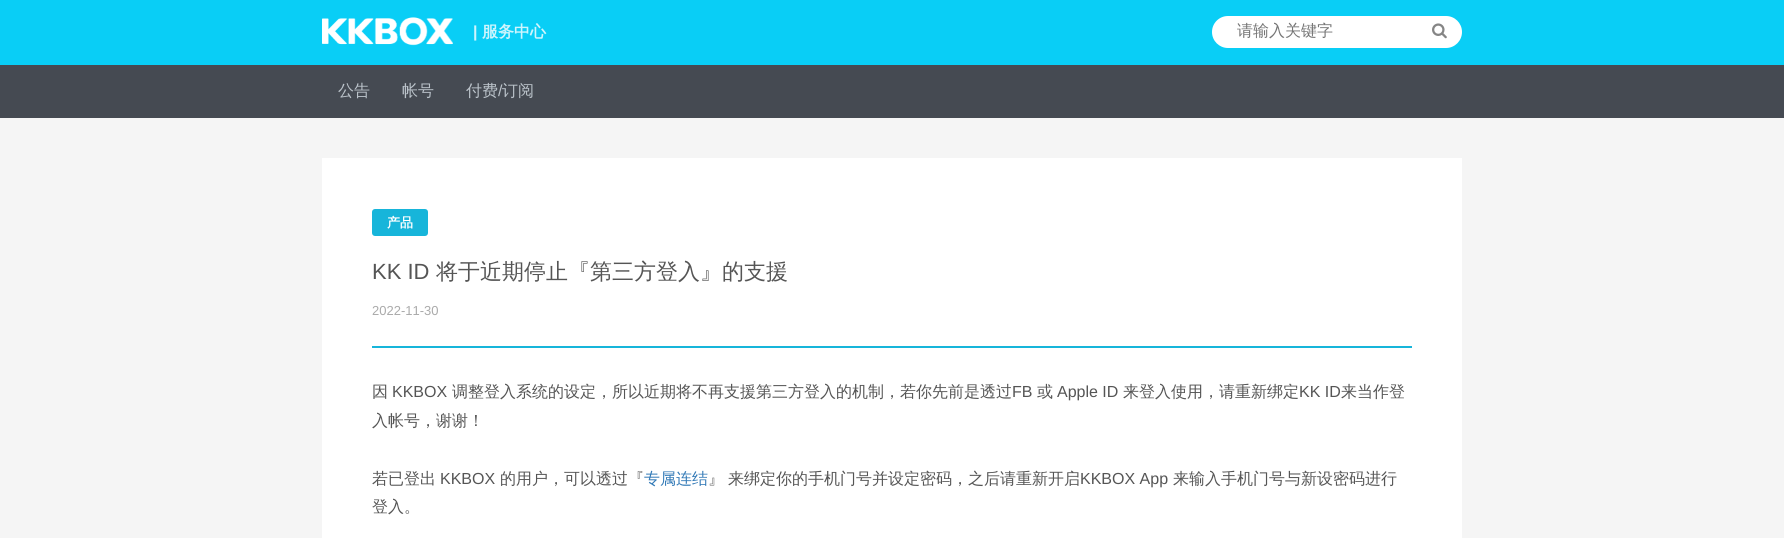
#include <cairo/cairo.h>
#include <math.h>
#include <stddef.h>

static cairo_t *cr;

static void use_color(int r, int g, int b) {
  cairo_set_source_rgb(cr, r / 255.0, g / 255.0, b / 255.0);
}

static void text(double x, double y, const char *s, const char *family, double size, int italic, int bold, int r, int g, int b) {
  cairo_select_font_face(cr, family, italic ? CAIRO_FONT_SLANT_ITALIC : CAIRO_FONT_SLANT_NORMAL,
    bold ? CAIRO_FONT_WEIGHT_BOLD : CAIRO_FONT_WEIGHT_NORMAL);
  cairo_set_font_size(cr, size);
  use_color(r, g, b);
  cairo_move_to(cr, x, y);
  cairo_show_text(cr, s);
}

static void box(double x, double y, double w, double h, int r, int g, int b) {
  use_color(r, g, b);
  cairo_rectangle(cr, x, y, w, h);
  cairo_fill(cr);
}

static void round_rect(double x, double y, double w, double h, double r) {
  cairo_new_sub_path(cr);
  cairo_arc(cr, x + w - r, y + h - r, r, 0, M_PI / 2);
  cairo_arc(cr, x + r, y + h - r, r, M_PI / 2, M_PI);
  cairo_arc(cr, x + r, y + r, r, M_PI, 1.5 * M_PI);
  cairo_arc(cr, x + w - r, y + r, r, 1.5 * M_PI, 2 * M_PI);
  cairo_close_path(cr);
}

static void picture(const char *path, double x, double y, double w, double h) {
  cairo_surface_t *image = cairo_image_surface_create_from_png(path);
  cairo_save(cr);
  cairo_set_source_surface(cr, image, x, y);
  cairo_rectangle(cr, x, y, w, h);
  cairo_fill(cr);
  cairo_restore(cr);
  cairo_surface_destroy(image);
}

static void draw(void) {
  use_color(245, 245, 245);
  cairo_paint(cr);
  box(0, 0, 1784, 65, 9, 206, 246);
  picture("img_01.png", 322, 17, 131, 29);
  use_color(255, 255, 255);
  round_rect(1212, 16, 250, 32, 16);
  cairo_fill(cr);
  picture("img_02.png", 1432, 23, 15, 16);
  box(0, 65, 1784, 53, 69, 74, 82);
  box(322, 158, 1140, 380, 255, 255, 255);
  box(372, 346, 1040, 2, 23, 181, 218);
  round_rect(372, 209, 56, 27, 3);
  cairo_fill(cr);
  text(473, 37, "|", "Liberation Sans", 16, 0, 1, 206, 245, 253);
  text(482, 37, "服务中心", "WenQuanYi Zen Hei", 16, 0, 1, 206, 245, 253);
  text(1237, 36, "请输入关键字", "WenQuanYi Zen Hei Medium", 16, 0, 0, 117, 117, 117);
  text(338, 96, "公告", "WenQuanYi Zen Hei Medium", 16, 0, 0, 187, 195, 202);
  text(402, 96, "帐号", "WenQuanYi Zen Hei Medium", 16, 0, 0, 187, 195, 202);
  text(466, 96, "付费", "WenQuanYi Zen Hei Medium", 16, 0, 0, 187, 195, 202);
  text(498, 96, "/", "Liberation Sans", 16, 0, 0, 187, 195, 202);
  text(502, 96, "订阅", "WenQuanYi Zen Hei Medium", 16, 0, 0, 187, 195, 202);
  text(387, 227, "产品", "WenQuanYi Zen Hei", 13, 0, 1, 255, 255, 255);
  text(372, 279, "KK ID", "Liberation Sans", 22, 0, 0, 85, 85, 85);
  text(436, 279, "将于近期停止『第三方登入』的支援", "WenQuanYi Zen Hei Medium", 22, 0, 0, 85, 85, 85);
  text(372, 315, "2022-11-30", "Liberation Sans", 13, 0, 0, 170, 170, 170);
  text(372, 397, "因", "WenQuanYi Zen Hei Medium", 16, 0, 0, 85, 85, 85);
  text(392, 397, "KKBOX", "Liberation Sans", 16, 0, 0, 85, 85, 85);
  text(452, 397, "调整登入系统的设定，所以近期将不再支援第三方登入的机制，若你先前是透过", "WenQuanYi Zen Hei Medium", 16, 0, 0, 85, 85, 85);
  text(1012, 397, "FB", "Liberation Sans", 16, 0, 0, 85, 85, 85);
  text(1037, 397, "或", "WenQuanYi Zen Hei Medium", 16, 0, 0, 85, 85, 85);
  text(1057, 397, "Apple ID", "Liberation Sans", 16, 0, 0, 85, 85, 85);
  text(1123, 397, "来登入使用，请重新绑定", "WenQuanYi Zen Hei Medium", 16, 0, 0, 85, 85, 85);
  text(1299, 397, "KK ID", "Liberation Sans", 16, 0, 0, 85, 85, 85);
  text(1341, 397, "来当作登", "WenQuanYi Zen Hei Medium", 16, 0, 0, 85, 85, 85);
  text(372, 426, "入帐号，谢谢！", "WenQuanYi Zen Hei Medium", 16, 0, 0, 85, 85, 85);
  text(372, 484, "若已登出", "WenQuanYi Zen Hei Medium", 16, 0, 0, 85, 85, 85);
  text(440, 484, "KKBOX", "Liberation Sans", 16, 0, 0, 85, 85, 85);
  text(500, 484, "的用户，可以透过『", "WenQuanYi Zen Hei Medium", 16, 0, 0, 85, 85, 85);
  text(644, 484, "专属连结", "WenQuanYi Zen Hei Medium", 16, 0, 0, 51, 122, 183);
  text(708, 484, "』", "WenQuanYi Zen Hei Medium", 16, 0, 0, 85, 85, 85);
  text(728, 484, "来绑定你的手机门号并设定密码，之后请重新开启", "WenQuanYi Zen Hei Medium", 16, 0, 0, 85, 85, 85);
  text(1080, 484, "KKBOX App", "Liberation Sans", 16, 0, 0, 85, 85, 85);
  text(1173, 484, "来输入手机门号与新设密码进行", "WenQuanYi Zen Hei Medium", 16, 0, 0, 85, 85, 85);
  text(372, 512, "登入。", "WenQuanYi Zen Hei Medium", 16, 0, 0, 85, 85, 85);
}

int main(void) {
  cairo_surface_t *surface = cairo_image_surface_create(CAIRO_FORMAT_RGB24, 1784, 538);
  cr = cairo_create(surface);
  cairo_font_options_t *options = cairo_font_options_create();
  cairo_font_options_set_hint_metrics(options, CAIRO_HINT_METRICS_OFF);
  cairo_font_options_set_hint_style(options, CAIRO_HINT_STYLE_NONE);
  cairo_set_font_options(cr, options);
  cairo_set_miter_limit(cr, 4);
  draw();
  cairo_surface_write_to_png(surface, "out.png");
  cairo_font_options_destroy(options);
  cairo_destroy(cr);
  cairo_surface_destroy(surface);
  return 0;
}
